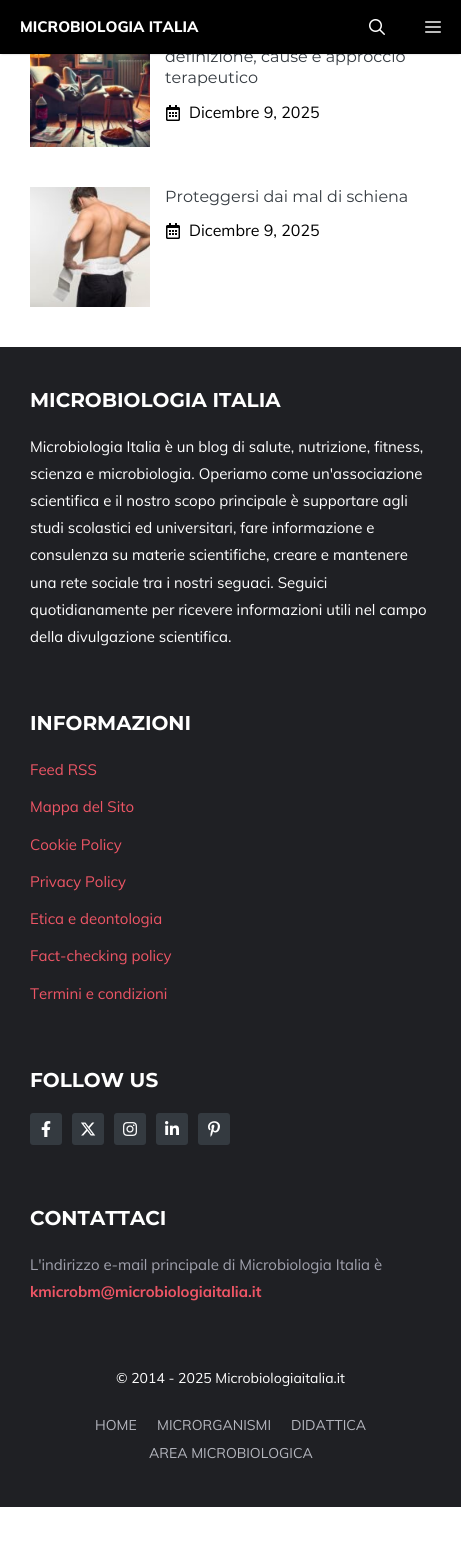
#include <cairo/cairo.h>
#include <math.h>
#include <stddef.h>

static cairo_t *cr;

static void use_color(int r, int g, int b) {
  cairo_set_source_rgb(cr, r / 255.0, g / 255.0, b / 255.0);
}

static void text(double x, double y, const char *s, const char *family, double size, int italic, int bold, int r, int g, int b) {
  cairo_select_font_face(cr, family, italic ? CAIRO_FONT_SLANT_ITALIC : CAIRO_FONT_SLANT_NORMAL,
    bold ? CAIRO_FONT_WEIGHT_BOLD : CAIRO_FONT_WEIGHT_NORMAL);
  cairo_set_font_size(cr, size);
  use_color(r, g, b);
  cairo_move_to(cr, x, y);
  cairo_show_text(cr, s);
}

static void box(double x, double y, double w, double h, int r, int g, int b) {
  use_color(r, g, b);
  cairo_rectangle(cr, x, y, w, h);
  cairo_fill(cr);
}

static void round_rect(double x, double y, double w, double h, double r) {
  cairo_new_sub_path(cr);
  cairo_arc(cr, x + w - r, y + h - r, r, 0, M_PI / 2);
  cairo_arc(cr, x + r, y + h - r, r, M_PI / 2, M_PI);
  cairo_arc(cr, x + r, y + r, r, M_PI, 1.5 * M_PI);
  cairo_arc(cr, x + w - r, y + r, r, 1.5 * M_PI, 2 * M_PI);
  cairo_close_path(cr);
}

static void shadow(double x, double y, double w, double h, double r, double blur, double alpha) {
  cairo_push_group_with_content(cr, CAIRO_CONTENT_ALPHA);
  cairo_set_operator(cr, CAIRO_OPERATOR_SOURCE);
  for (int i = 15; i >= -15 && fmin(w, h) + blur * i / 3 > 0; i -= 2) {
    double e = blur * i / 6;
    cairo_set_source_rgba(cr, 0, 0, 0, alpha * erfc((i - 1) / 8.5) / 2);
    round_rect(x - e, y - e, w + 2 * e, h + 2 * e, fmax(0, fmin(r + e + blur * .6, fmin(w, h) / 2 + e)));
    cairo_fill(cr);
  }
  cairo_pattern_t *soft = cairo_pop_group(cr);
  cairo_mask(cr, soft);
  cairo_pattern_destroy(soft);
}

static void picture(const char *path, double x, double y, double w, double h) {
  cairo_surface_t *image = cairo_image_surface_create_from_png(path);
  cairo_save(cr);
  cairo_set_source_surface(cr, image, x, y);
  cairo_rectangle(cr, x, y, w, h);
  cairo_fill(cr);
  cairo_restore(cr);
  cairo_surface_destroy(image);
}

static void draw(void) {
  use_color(255, 255, 255);
  cairo_paint(cr);
  picture("img_03.png", 30, 54, 120, 93);
  use_color(0, 0, 0);
  shadow(2, 4, 457, 50, 0, 1, 0.2);
  picture("img_04.png", 166, 105, 14, 16);
  picture("img_05.png", 30, 187, 120, 120);
  picture("img_04.png", 166, 223, 14, 16);
  box(0, 347, 461, 1160, 31, 32, 36);
  use_color(52, 58, 64);
  round_rect(30, 1113, 32, 32, 3);
  cairo_fill(cr);
  picture("img_06.png", 41, 1121, 10, 16);
  round_rect(72, 1113, 32, 32, 3);
  cairo_fill(cr);
  picture("img_07.png", 81, 1122, 15, 14);
  round_rect(114, 1113, 32, 32, 3);
  cairo_fill(cr);
  picture("img_08.png", 123, 1122, 14, 14);
  round_rect(156, 1113, 32, 32, 3);
  cairo_fill(cr);
  picture("img_09.png", 165, 1121, 14, 14);
  round_rect(198, 1113, 32, 32, 3);
  cairo_fill(cr);
  picture("img_10.png", 208, 1121, 12, 16);
  text(165, 62, "definizione, cause e approccio", "Montserrat", 16, 0, 0, 52, 58, 64);
  box(0, 0, 461, 54, 0, 0, 0);
  picture("img_01.png", 369, 19, 16, 16);
  picture("img_02.png", 425, 21, 16, 12);
  text(20, 32, "MICROBIOLOGIA ITALIA", "Muli ExtraBold", 15, 0, 0, 255, 255, 255);
  text(165, 83, "terapeutico", "Montserrat", 16, 0, 0, 52, 58, 64);
  text(189, 118, "Dicembre 9, 2025", "Muli", 16, 0, 0, 0, 0, 0);
  text(165, 202, "Proteggersi dai mal di schiena", "Montserrat", 16, 0, 0, 52, 58, 64);
  text(189, 236, "Dicembre 9, 2025", "Muli", 16, 0, 0, 0, 0, 0);
  text(30, 407, "MICROBIOLOGIA ITALIA", "Montserrat", 20, 0, 1, 255, 255, 255);
  text(30, 452, "Microbiologia Italia è un blog di salute, nutrizione, fitness,", "Muli", 15, 0, 0, 255, 255, 255);
  text(30, 479, "scienza e microbiologia. Operiamo come un'associazione", "Muli", 15, 0, 0, 255, 255, 255);
  text(30, 506, "scientifica e il nostro scopo principale è supportare agli", "Muli", 15, 0, 0, 255, 255, 255);
  text(30, 533, "studi scolastici ed universitari, fare informazione e", "Muli", 15, 0, 0, 255, 255, 255);
  text(30, 560, "consulenza su materie scientifiche, creare e mantenere", "Muli", 15, 0, 0, 255, 255, 255);
  text(30, 588, "una rete sociale tra i nostri seguaci. Seguici", "Muli", 15, 0, 0, 255, 255, 255);
  text(30, 615, "quotidianamente per ricevere informazioni utili nel campo", "Muli", 15, 0, 0, 255, 255, 255);
  text(30, 642, "della divulgazione scientifica.", "Muli", 15, 0, 0, 255, 255, 255);
  text(30, 730, "INFORMAZIONI", "Montserrat", 20, 0, 1, 255, 255, 255);
  text(30, 775, "Feed RSS", "Muli", 15, 0, 0, 238, 85, 101);
  text(30, 812, "Mappa del Sito", "Muli", 15, 0, 0, 238, 85, 101);
  text(30, 850, "Cookie Policy", "Muli", 15, 0, 0, 238, 85, 101);
  text(30, 887, "Privacy Policy", "Muli", 15, 0, 0, 238, 85, 101);
  text(30, 924, "Etica e deontologia", "Muli", 15, 0, 0, 238, 85, 101);
  text(30, 961, "Fact-checking policy", "Muli", 15, 0, 0, 238, 85, 101);
  text(30, 999, "Termini e condizioni", "Muli", 15, 0, 0, 238, 85, 101);
  text(30, 1087, "FOLLOW US", "Montserrat", 20, 0, 1, 255, 255, 255);
  text(30, 1225, "CONTATTACI", "Montserrat", 20, 0, 1, 255, 255, 255);
  text(30, 1270, "L'indirizzo e-mail principale di Microbiologia Italia è", "Muli", 15, 0, 0, 160, 161, 173);
  text(30, 1297, "kmicrobm@microbiologiaitalia.it", "Muli", 15, 0, 1, 238, 85, 101);
  text(116, 1383, "© 2014 - 2025 Microbiologiaitalia.it", "Muli", 14, 0, 0, 255, 255, 255);
  text(95, 1430, "HOME", "Muli", 14, 0, 0, 181, 183, 191);
  text(157, 1430, "MICRORGANISMI", "Muli", 14, 0, 0, 181, 183, 191);
  text(291, 1430, "DIDATTICA", "Muli", 14, 0, 0, 181, 183, 191);
  text(149, 1458, "AREA MICROBIOLOGICA", "Muli", 14, 0, 0, 181, 183, 191);
}

int main(void) {
  cairo_surface_t *surface = cairo_image_surface_create(CAIRO_FORMAT_RGB24, 461, 1558);
  cr = cairo_create(surface);
  cairo_font_options_t *options = cairo_font_options_create();
  cairo_font_options_set_hint_metrics(options, CAIRO_HINT_METRICS_OFF);
  cairo_font_options_set_hint_style(options, CAIRO_HINT_STYLE_NONE);
  cairo_set_font_options(cr, options);
  cairo_set_miter_limit(cr, 4);
  draw();
  cairo_surface_write_to_png(surface, "out.png");
  cairo_font_options_destroy(options);
  cairo_destroy(cr);
  cairo_surface_destroy(surface);
  return 0;
}
